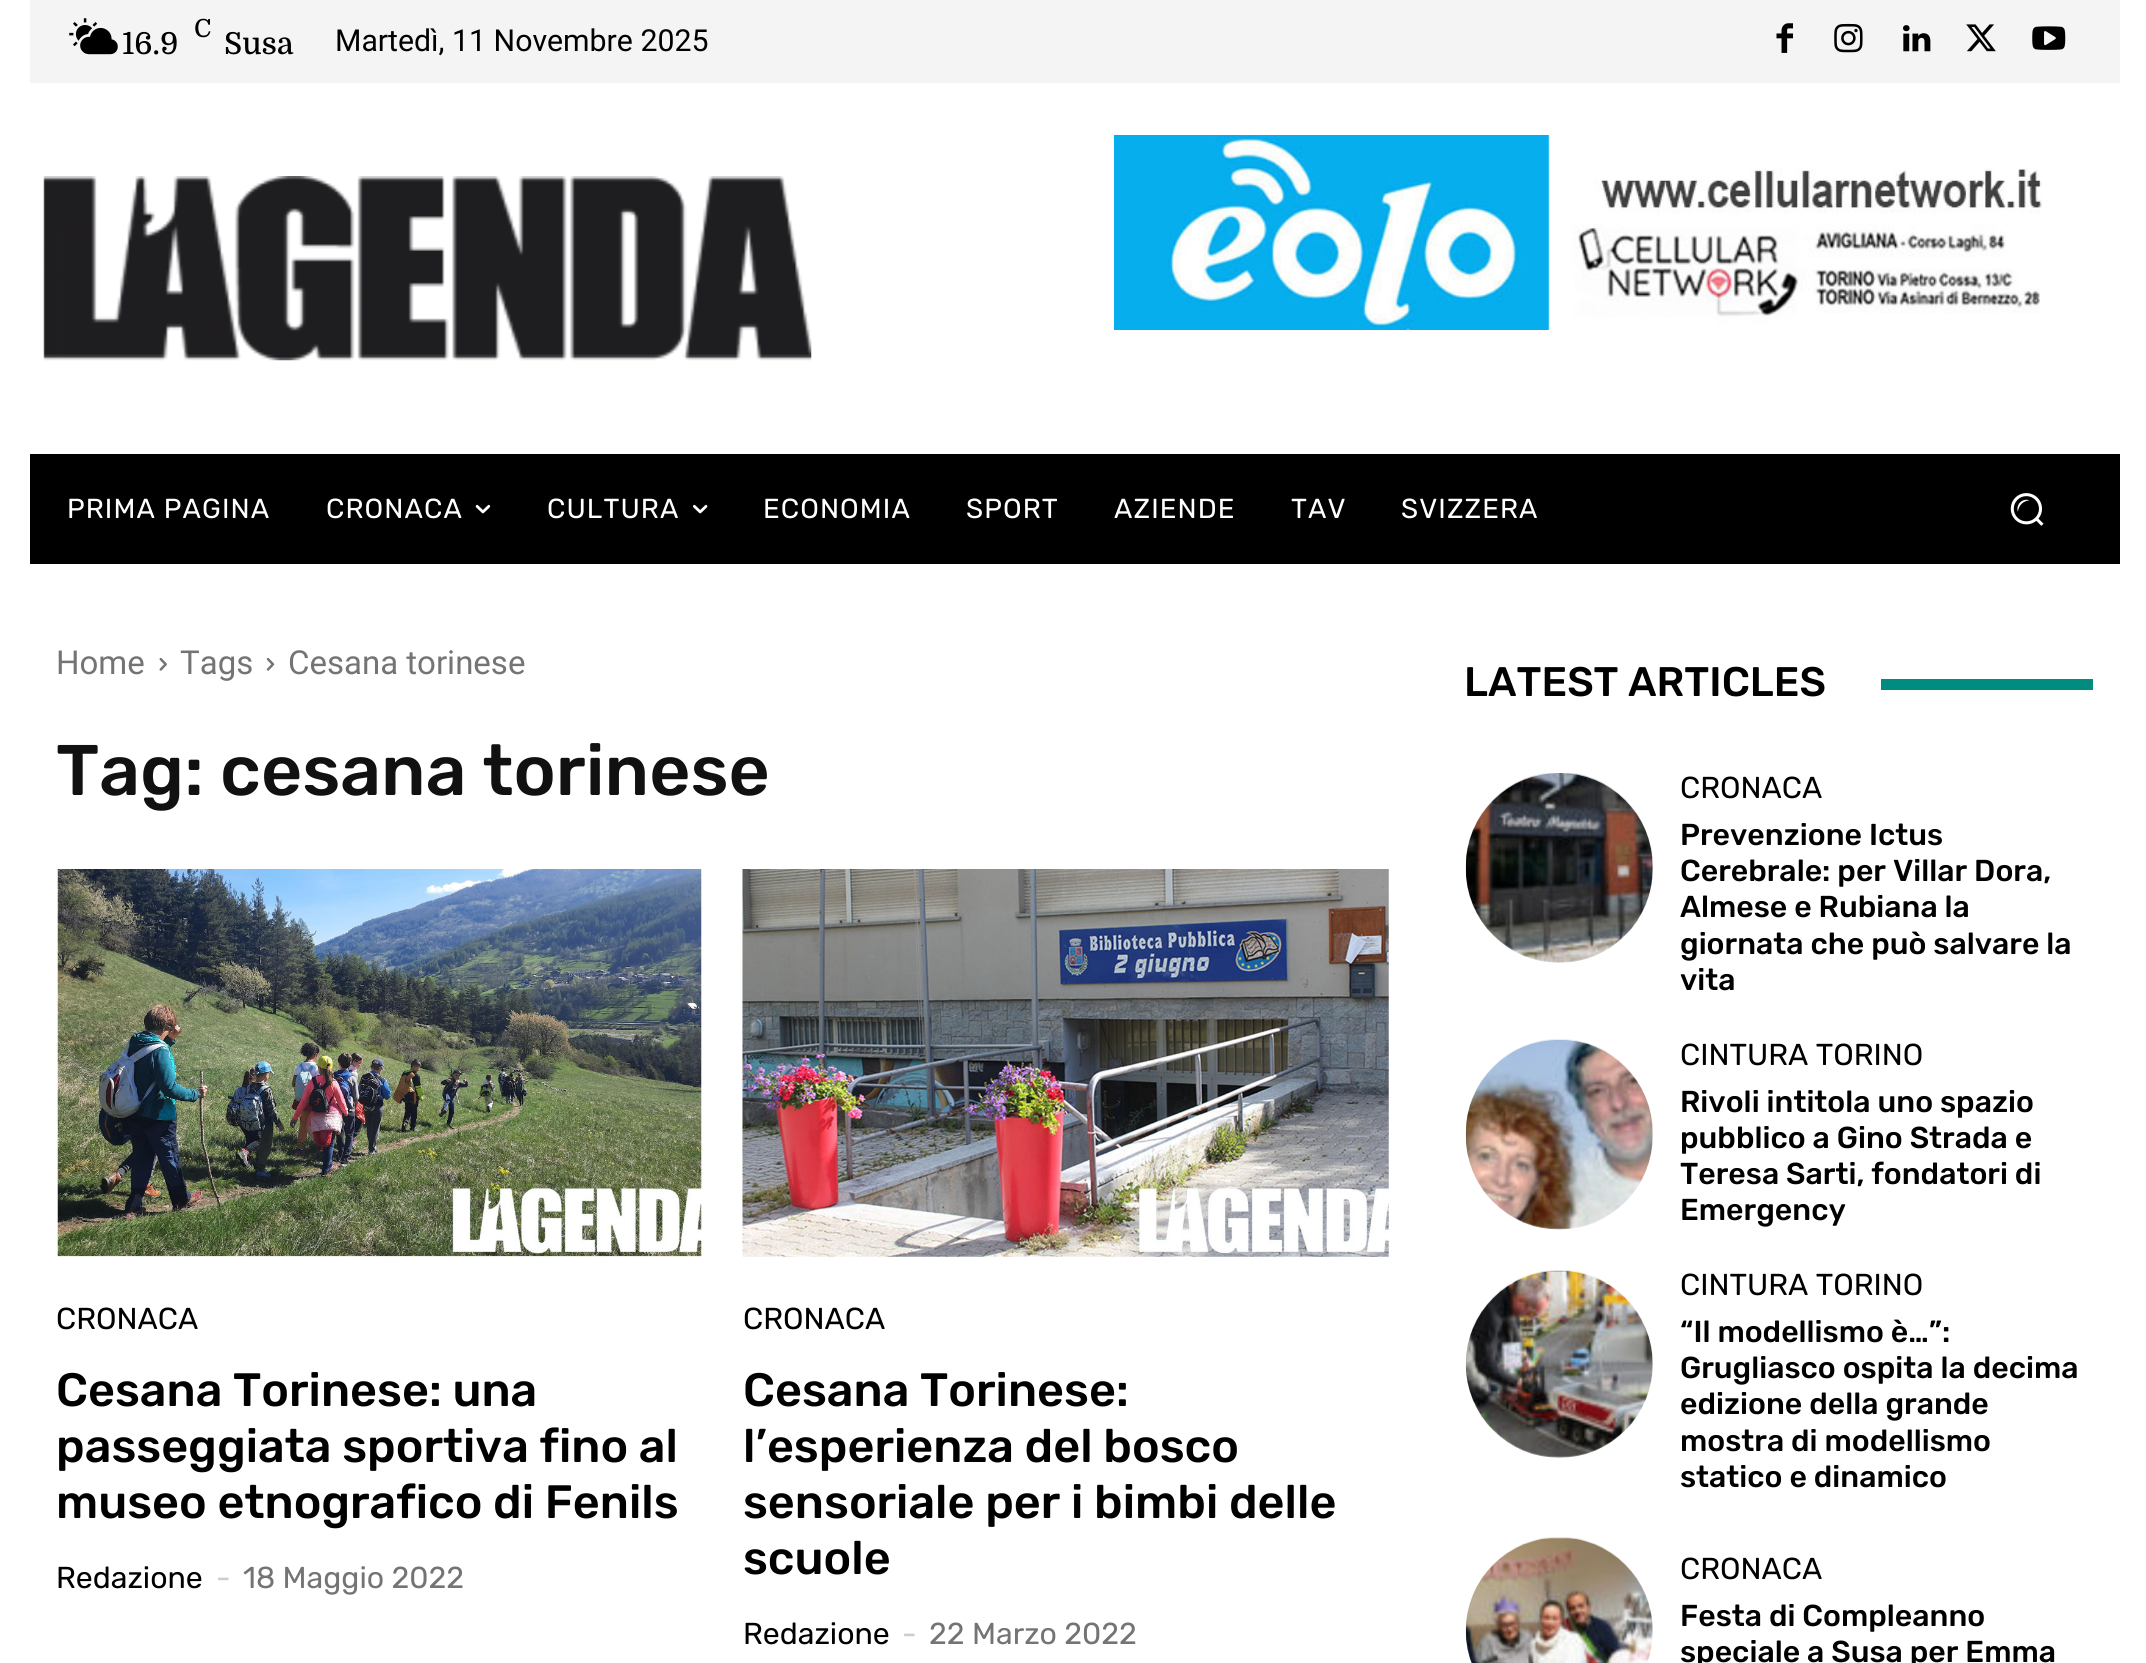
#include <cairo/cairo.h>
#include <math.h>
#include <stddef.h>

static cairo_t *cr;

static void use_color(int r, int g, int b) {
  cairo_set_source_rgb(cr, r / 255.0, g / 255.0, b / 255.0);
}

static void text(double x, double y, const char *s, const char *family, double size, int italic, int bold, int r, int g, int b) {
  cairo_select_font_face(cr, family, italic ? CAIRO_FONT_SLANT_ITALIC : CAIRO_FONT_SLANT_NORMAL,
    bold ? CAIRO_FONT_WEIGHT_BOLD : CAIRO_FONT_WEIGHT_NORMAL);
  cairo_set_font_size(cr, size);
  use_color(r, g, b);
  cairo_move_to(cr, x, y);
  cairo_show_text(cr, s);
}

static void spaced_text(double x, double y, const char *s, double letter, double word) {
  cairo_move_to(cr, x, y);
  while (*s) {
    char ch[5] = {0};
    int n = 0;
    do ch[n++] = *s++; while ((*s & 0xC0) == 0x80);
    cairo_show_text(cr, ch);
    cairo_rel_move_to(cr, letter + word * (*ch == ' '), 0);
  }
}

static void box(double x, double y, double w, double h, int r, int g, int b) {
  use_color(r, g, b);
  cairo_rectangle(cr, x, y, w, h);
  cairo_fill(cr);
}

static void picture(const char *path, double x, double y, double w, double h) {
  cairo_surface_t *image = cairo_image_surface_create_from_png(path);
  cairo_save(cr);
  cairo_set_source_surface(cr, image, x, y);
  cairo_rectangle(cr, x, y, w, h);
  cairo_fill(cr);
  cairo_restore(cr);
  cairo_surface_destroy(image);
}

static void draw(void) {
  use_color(255, 255, 255);
  cairo_paint(cr);
  box(30, 0, 2090, 83, 244, 244, 244);
  picture("img_01.png", 69, 18, 49, 37);
  picture("img_02.png", 1776, 23, 17, 30);
  picture("img_03.png", 1834, 23, 29, 30);
  picture("img_04.png", 1903, 25, 28, 27);
  picture("img_05.png", 1966, 24, 30, 28);
  picture("img_06.png", 2032, 26, 34, 24);
  picture("img_07.png", 43, 176, 769, 185);
  picture("img_08.png", 1114, 135, 928, 195);
  box(30, 454, 2090, 110, 0, 0, 0);
  picture("img_09.png", 475, 504, 16, 10);
  picture("img_10.png", 693, 504, 15, 10);
  picture("img_11.png", 2010, 493, 34, 33);
  picture("img_12.png", 159, 657, 8, 14);
  picture("img_13.png", 266, 657, 9, 14);
  picture("img_14.png", 57, 869, 645, 388);
  picture("img_15.png", 742, 869, 647, 388);
  box(1881, 679, 212, 11, 0, 141, 127);
  picture("img_16.png", 1465, 773, 188, 190);
  picture("img_17.png", 1465, 1039, 188, 191);
  picture("img_18.png", 1465, 1270, 188, 188);
  picture("img_19.png", 1465, 1537, 188, 126);
  text(194, 37, "C", "Domine Medium", 25, 0, 0, 0, 0, 0);
  text(122, 54, "16.9", "Domine Medium", 30.25, 0, 0, 0, 0, 0);
  text(224, 54, "Susa", "Domine Medium", 30.25, 0, 0, 0, 0, 0);
  text(335, 51, "Martedì, 11 Novembre 2025", "Roboto", 30.25, 0, 0, 0, 0, 0);
  cairo_select_font_face(cr, "Rubik", CAIRO_FONT_SLANT_NORMAL, CAIRO_FONT_WEIGHT_NORMAL);
  cairo_set_font_size(cr, 27.5);
  use_color(255, 255, 255);
  spaced_text(67, 518, "PRIMA PAGINA", 1.1, 0);
  spaced_text(326, 518, "CRONACA", 1.1, 0);
  spaced_text(547, 518, "CULTURA", 1.1, 0);
  spaced_text(763, 518, "ECONOMIA", 1.1, 0);
  spaced_text(966, 518, "SPORT", 1.1, 0);
  spaced_text(1114, 518, "AZIENDE", 1.1, 0);
  spaced_text(1291, 518, "TAV", 1.1, 0);
  spaced_text(1401, 518, "SVIZZERA", 1.1, 0);
  text(56, 674, "Home", "Roboto", 33, 0, 0, 116, 116, 116);
  text(180, 674, "Tags", "Roboto", 33, 0, 0, 116, 116, 116);
  text(288, 674, "Cesana torinese", "Roboto", 33, 0, 0, 116, 116, 116);
  text(56, 795, "Tag: cesana torinese", "Rubik Medium", 71.5, 0, 0, 17, 17, 17);
  text(56, 1329, "CRONACA", "Rubik", 30.25, 0, 0, 0, 0, 0);
  text(56, 1406, "Cesana Torinese: una", "Rubik Medium", 46.75, 0, 0, 0, 0, 0);
  text(56, 1462, "passeggiata sportiva fino al", "Rubik Medium", 46.75, 0, 0, 0, 0, 0);
  text(56, 1518, "museo etnografico di Fenils", "Rubik Medium", 46.75, 0, 0, 0, 0, 0);
  text(56, 1588, "Redazione", "Rubik", 30.25, 0, 0, 0, 0, 0);
  text(216, 1588, "-", "Rubik", 30.25, 0, 0, 204, 204, 204);
  text(243, 1588, "18 Maggio 2022", "Rubik", 30.25, 0, 0, 116, 116, 116);
  text(743, 1329, "CRONACA", "Rubik", 30.25, 0, 0, 0, 0, 0);
  text(743, 1406, "Cesana Torinese:", "Rubik Medium", 46.75, 0, 0, 0, 0, 0);
  text(743, 1462, "l’esperienza del bosco", "Rubik Medium", 46.75, 0, 0, 0, 0, 0);
  text(743, 1518, "sensoriale per i bimbi delle", "Rubik Medium", 46.75, 0, 0, 0, 0, 0);
  text(743, 1574, "scuole", "Rubik Medium", 46.75, 0, 0, 0, 0, 0);
  text(743, 1644, "Redazione", "Rubik", 30.25, 0, 0, 0, 0, 0);
  text(902, 1644, "-", "Rubik", 30.25, 0, 0, 204, 204, 204);
  text(929, 1644, "22 Marzo 2022", "Rubik", 30.25, 0, 0, 116, 116, 116);
  text(1464, 696, "LATEST ARTICLES", "Rubik Medium", 41.25, 0, 0, 0, 0, 0);
  text(1680, 798, "CRONACA", "Rubik", 30.25, 0, 0, 0, 0, 0);
  text(1680, 845, "Prevenzione Ictus", "Rubik Medium", 30.25, 0, 0, 0, 0, 0);
  text(1680, 881, "Cerebrale: per Villar Dora,", "Rubik Medium", 30.25, 0, 0, 0, 0, 0);
  text(1680, 917, "Almese e Rubiana la", "Rubik Medium", 30.25, 0, 0, 0, 0, 0);
  text(1680, 954, "giornata che può salvare la", "Rubik Medium", 30.25, 0, 0, 0, 0, 0);
  text(1680, 990, "vita", "Rubik Medium", 30.25, 0, 0, 0, 0, 0);
  text(1680, 1065, "CINTURA TORINO", "Rubik", 30.25, 0, 0, 0, 0, 0);
  text(1680, 1112, "Rivoli intitola uno spazio", "Rubik Medium", 30.25, 0, 0, 0, 0, 0);
  text(1680, 1148, "pubblico a Gino Strada e", "Rubik Medium", 30.25, 0, 0, 0, 0, 0);
  text(1680, 1184, "Teresa Sarti, fondatori di", "Rubik Medium", 30.25, 0, 0, 0, 0, 0);
  text(1680, 1220, "Emergency", "Rubik Medium", 30.25, 0, 0, 0, 0, 0);
  text(1680, 1295, "CINTURA TORINO", "Rubik", 30.25, 0, 0, 0, 0, 0);
  text(1680, 1342, "“Il modellismo è…”:", "Rubik Medium", 30.25, 0, 0, 0, 0, 0);
  text(1680, 1378, "Grugliasco ospita la decima", "Rubik Medium", 30.25, 0, 0, 0, 0, 0);
  text(1680, 1414, "edizione della grande", "Rubik Medium", 30.25, 0, 0, 0, 0, 0);
  text(1680, 1451, "mostra di modellismo", "Rubik Medium", 30.25, 0, 0, 0, 0, 0);
  text(1680, 1487, "statico e dinamico", "Rubik Medium", 30.25, 0, 0, 0, 0, 0);
  text(1680, 1579, "CRONACA", "Rubik", 30.25, 0, 0, 0, 0, 0);
  text(1680, 1626, "Festa di Compleanno", "Rubik Medium", 30.25, 0, 0, 0, 0, 0);
  text(1680, 1662, "speciale a Susa per Emma", "Rubik Medium", 30.25, 0, 0, 0, 0, 0);
}

int main(void) {
  cairo_surface_t *surface = cairo_image_surface_create(CAIRO_FORMAT_RGB24, 2146, 1663);
  cr = cairo_create(surface);
  cairo_font_options_t *options = cairo_font_options_create();
  cairo_font_options_set_hint_metrics(options, CAIRO_HINT_METRICS_OFF);
  cairo_font_options_set_hint_style(options, CAIRO_HINT_STYLE_NONE);
  cairo_set_font_options(cr, options);
  cairo_set_miter_limit(cr, 4);
  draw();
  cairo_surface_write_to_png(surface, "out.png");
  cairo_font_options_destroy(options);
  cairo_destroy(cr);
  cairo_surface_destroy(surface);
  return 0;
}
